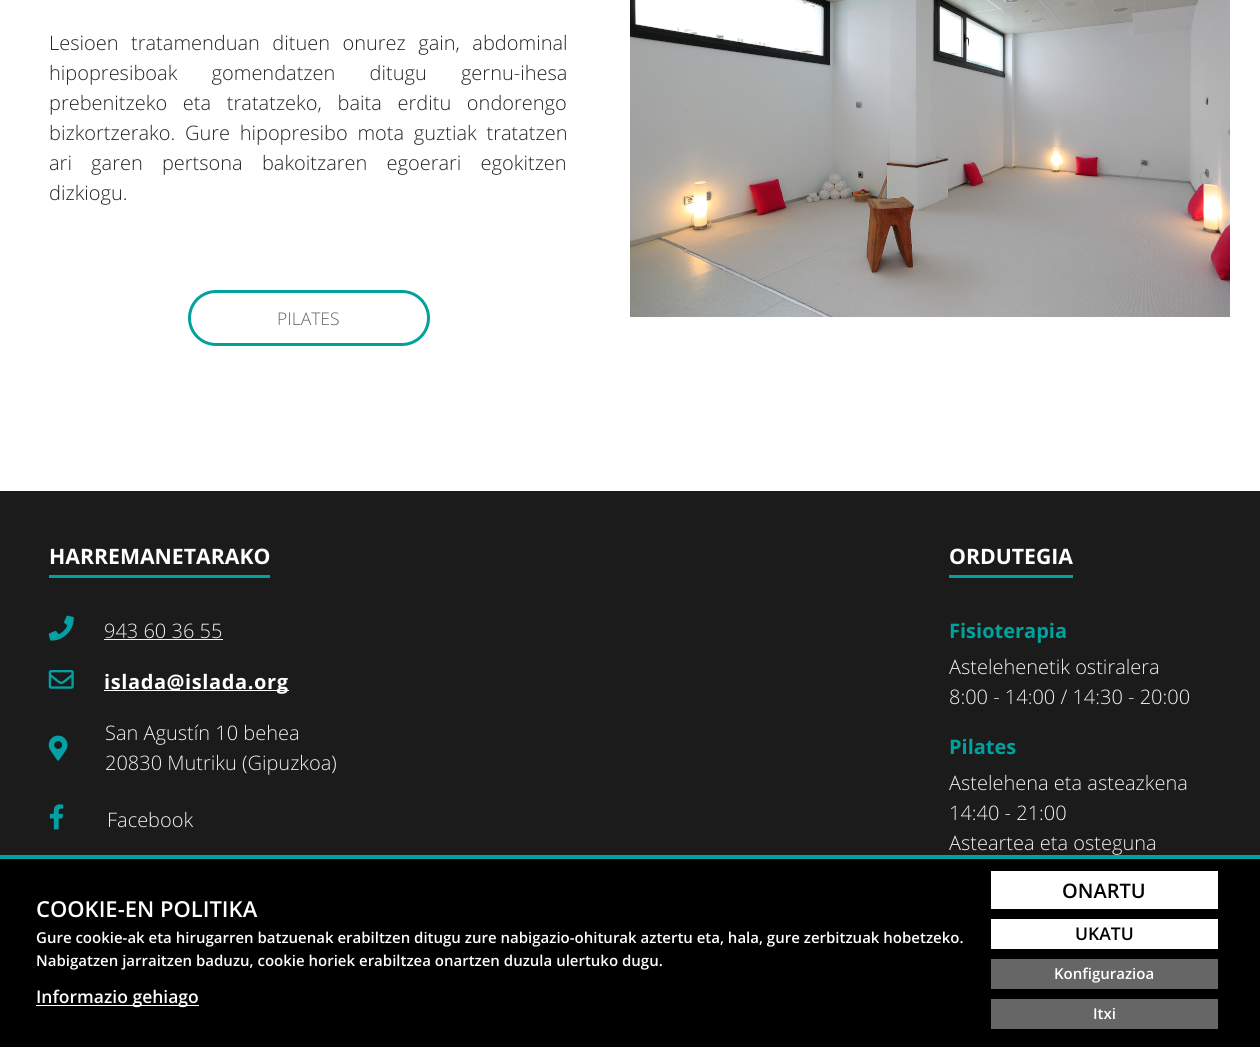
#include <cairo/cairo.h>
#include <math.h>
#include <stddef.h>

static cairo_t *cr;

static void use_color(int r, int g, int b) {
  cairo_set_source_rgb(cr, r / 255.0, g / 255.0, b / 255.0);
}

static void text(double x, double y, const char *s, const char *family, double size, int italic, int bold, int r, int g, int b) {
  cairo_select_font_face(cr, family, italic ? CAIRO_FONT_SLANT_ITALIC : CAIRO_FONT_SLANT_NORMAL,
    bold ? CAIRO_FONT_WEIGHT_BOLD : CAIRO_FONT_WEIGHT_NORMAL);
  cairo_set_font_size(cr, size);
  use_color(r, g, b);
  cairo_move_to(cr, x, y);
  cairo_show_text(cr, s);
}

static void spaced_text(double x, double y, const char *s, double letter, double word) {
  cairo_move_to(cr, x, y);
  while (*s) {
    char ch[5] = {0};
    int n = 0;
    do ch[n++] = *s++; while ((*s & 0xC0) == 0x80);
    cairo_show_text(cr, ch);
    cairo_rel_move_to(cr, letter + word * (*ch == ' '), 0);
  }
}

static void box(double x, double y, double w, double h, int r, int g, int b) {
  use_color(r, g, b);
  cairo_rectangle(cr, x, y, w, h);
  cairo_fill(cr);
}

static void round_rect(double x, double y, double w, double h, double r) {
  cairo_new_sub_path(cr);
  cairo_arc(cr, x + w - r, y + h - r, r, 0, M_PI / 2);
  cairo_arc(cr, x + r, y + h - r, r, M_PI / 2, M_PI);
  cairo_arc(cr, x + r, y + r, r, M_PI, 1.5 * M_PI);
  cairo_arc(cr, x + w - r, y + r, r, 1.5 * M_PI, 2 * M_PI);
  cairo_close_path(cr);
}

static void picture(const char *path, double x, double y, double w, double h) {
  cairo_surface_t *image = cairo_image_surface_create_from_png(path);
  cairo_save(cr);
  cairo_set_source_surface(cr, image, x, y);
  cairo_rectangle(cr, x, y, w, h);
  cairo_fill(cr);
  cairo_restore(cr);
  cairo_surface_destroy(image);
}

static void draw(void) {
  use_color(255, 255, 255);
  cairo_paint(cr);
  round_rect(189.5, 291.5, 239, 53, 26.5);
  use_color(0, 162, 157);
  cairo_set_line_width(cr, 3);
  cairo_stroke(cr);
  picture("img_01.png", 630, 0, 600, 317);
  box(0, 491, 1260, 364, 27, 27, 27);
  box(49, 575, 221, 3, 0, 162, 157);
  picture("img_02.png", 48, 615, 26, 26);
  box(104, 639, 119, 1, 240, 240, 240);
  picture("img_03.png", 48, 670, 26, 19);
  box(104, 690, 185, 1, 255, 255, 255);
  picture("img_04.png", 48, 735, 20, 26);
  picture("img_05.png", 49, 804, 15, 26);
  box(949, 575, 124, 3, 0, 162, 157);
  box(0, 859, 1260, 188, 0, 0, 0);
  box(0, 855, 1260, 4, 0, 162, 157);
  box(36, 1005, 163, 1, 255, 255, 255);
  box(991, 871, 227, 38, 255, 255, 255);
  box(991, 919, 227, 30, 255, 255, 255);
  box(991, 959, 227, 30, 102, 102, 102);
  box(991, 999, 227, 30, 102, 102, 102);
  cairo_select_font_face(cr, "Open Sans Light", CAIRO_FONT_SLANT_NORMAL, CAIRO_FONT_WEIGHT_NORMAL);
  cairo_set_font_size(cr, 20);
  use_color(33, 37, 41);
  spaced_text(49, 50, "Lesioen tratamenduan dituen onurez gain, abdominal", 0, 7.25);
  spaced_text(49, 80, "hipopresiboak gomendatzen ditugu gernu-ihesa", 0, 29);
  spaced_text(49, 110, "prebenitzeko eta tratatzeko, baita erditu ondorengo", 0, 10.5);
  spaced_text(49, 140, "bizkortzerako. Gure hipopresibo mota guztiak tratatzen", 0, 4.5);
  spaced_text(49, 170, "ari garen pertsona bakoitzaren egoerari egokitzen", 0, 14);
  text(49, 200, "dizkiogu.", "Open Sans Light", 20, 0, 0, 33, 37, 41);
  text(277, 325, "PILATES", "Open Sans Light", 17.5, 0, 0, 102, 102, 102);
  text(49, 564, "HARREMANETARAKO", "Open Sans", 21.25, 0, 1, 255, 255, 255);
  text(104, 638, "943 60 36 55", "Open Sans Light", 20, 0, 0, 240, 240, 240);
  cairo_select_font_face(cr, "Open Sans", CAIRO_FONT_SLANT_NORMAL, CAIRO_FONT_WEIGHT_BOLD);
  use_color(255, 255, 255);
  spaced_text(104, 689, "islada@islada.org", 0.6, 0);
  text(105, 740, "San Agustín 10 behea", "Open Sans Light", 20, 0, 0, 240, 240, 240);
  text(105, 770, "20830 Mutriku (Gipuzkoa)", "Open Sans Light", 20, 0, 0, 240, 240, 240);
  text(107, 827, "Facebook", "Open Sans Light", 20, 0, 0, 240, 240, 240);
  text(949, 564, "ORDUTEGIA", "Open Sans", 21.25, 0, 1, 255, 255, 255);
  text(949, 638, "Fisioterapia", "Open Sans", 20, 0, 1, 0, 162, 157);
  text(949, 674, "Astelehenetik ostiralera", "Open Sans Light", 20, 0, 0, 240, 240, 240);
  text(949, 704, "8:00 - 14:00 / 14:30 - 20:00", "Open Sans Light", 20, 0, 0, 240, 240, 240);
  text(949, 754, "Pilates", "Open Sans", 20, 0, 1, 0, 162, 157);
  text(949, 790, "Astelehena eta asteazkena", "Open Sans Light", 20, 0, 0, 240, 240, 240);
  text(949, 820, "14:40 - 21:00", "Open Sans Light", 20, 0, 0, 240, 240, 240);
  text(949, 850, "Asteartea eta osteguna", "Open Sans Light", 20, 0, 0, 240, 240, 240);
  text(36, 917, "COOKIE-EN POLITIKA", "Open Sans SemiBold", 22, 0, 0, 255, 255, 255);
  text(36, 943, "Gure cookie-ak eta hirugarren batzuenak erabiltzen ditugu zure nabigazio-ohiturak aztertu eta, hala, gure zerbitzuak hobetzeko.", "Open Sans SemiBold", 15, 0, 0, 255, 255, 255);
  text(36, 966, "Nabigatzen jarraitzen baduzu, cookie horiek erabiltzea onartzen duzula ulertuko dugu.", "Open Sans SemiBold", 15, 0, 0, 255, 255, 255);
  text(36, 1003, "Informazio gehiago", "Open Sans SemiBold", 17.5, 0, 0, 255, 255, 255);
  text(1062, 898, "ONARTU", "Open Sans SemiBold", 20, 0, 0, 0, 0, 0);
  text(1075, 940, "UKATU", "Open Sans SemiBold", 17.5, 0, 0, 0, 0, 0);
  text(1054, 979, "Konfigurazioa", "Open Sans SemiBold", 15, 0, 0, 255, 255, 255);
  text(1093, 1019, "Itxi", "Open Sans SemiBold", 15, 0, 0, 255, 255, 255);
}

int main(void) {
  cairo_surface_t *surface = cairo_image_surface_create(CAIRO_FORMAT_RGB24, 1260, 1047);
  cr = cairo_create(surface);
  cairo_font_options_t *options = cairo_font_options_create();
  cairo_font_options_set_hint_metrics(options, CAIRO_HINT_METRICS_OFF);
  cairo_font_options_set_hint_style(options, CAIRO_HINT_STYLE_NONE);
  cairo_set_font_options(cr, options);
  cairo_set_miter_limit(cr, 4);
  draw();
  cairo_surface_write_to_png(surface, "out.png");
  cairo_font_options_destroy(options);
  cairo_destroy(cr);
  cairo_surface_destroy(surface);
  return 0;
}
